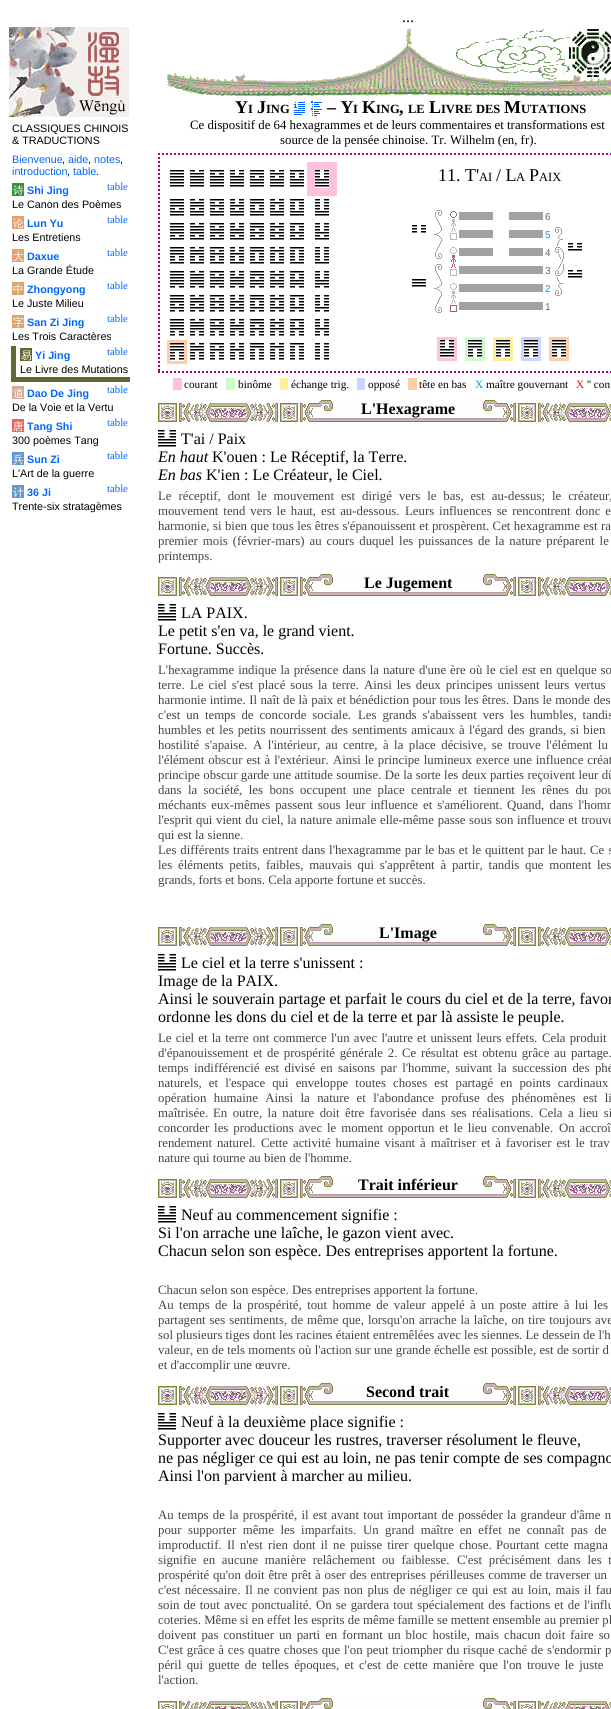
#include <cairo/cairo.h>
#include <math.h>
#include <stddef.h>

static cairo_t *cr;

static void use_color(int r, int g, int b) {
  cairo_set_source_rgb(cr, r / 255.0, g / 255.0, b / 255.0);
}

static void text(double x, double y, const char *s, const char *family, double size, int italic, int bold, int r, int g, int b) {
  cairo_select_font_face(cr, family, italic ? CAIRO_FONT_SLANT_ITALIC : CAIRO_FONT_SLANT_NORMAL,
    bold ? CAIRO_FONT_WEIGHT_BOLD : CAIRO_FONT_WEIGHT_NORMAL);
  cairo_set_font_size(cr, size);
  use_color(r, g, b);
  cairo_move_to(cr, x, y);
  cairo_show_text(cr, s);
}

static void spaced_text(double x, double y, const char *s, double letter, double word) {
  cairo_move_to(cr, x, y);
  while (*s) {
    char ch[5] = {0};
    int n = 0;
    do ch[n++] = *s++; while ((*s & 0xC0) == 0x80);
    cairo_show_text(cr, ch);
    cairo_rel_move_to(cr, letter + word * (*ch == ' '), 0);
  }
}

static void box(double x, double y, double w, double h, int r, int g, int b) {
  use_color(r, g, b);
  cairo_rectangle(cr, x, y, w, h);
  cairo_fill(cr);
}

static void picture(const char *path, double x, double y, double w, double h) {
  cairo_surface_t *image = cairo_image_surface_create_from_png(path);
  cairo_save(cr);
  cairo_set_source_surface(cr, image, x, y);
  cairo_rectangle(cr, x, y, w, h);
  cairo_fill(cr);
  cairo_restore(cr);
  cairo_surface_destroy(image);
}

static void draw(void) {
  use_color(255, 255, 255);
  cairo_paint(cr);
  picture("img_01.png", 9, 27, 120, 90);
  box(12, 183, 12, 13, 50, 147, 51);
  box(12, 216, 12, 13, 231, 159, 107);
  box(12, 249, 12, 13, 231, 159, 107);
  box(12, 282, 12, 13, 223, 164, 108);
  box(12, 315, 12, 13, 223, 164, 108);
  box(11, 377, 119, 5, 102, 102, 51);
  box(11, 346, 5, 36, 102, 102, 51);
  box(20, 348, 12, 13, 102, 102, 51);
  box(12, 386, 12, 13, 213, 169, 148);
  box(12, 419, 12, 13, 235, 99, 99);
  box(12, 452, 12, 13, 101, 153, 205);
  box(12, 485, 12, 13, 101, 153, 205);
  picture("img_02.png", 167, 28, 444, 68);
  picture("img_03.png", 294, 102, 11, 13);
  picture("img_04.png", 311, 101, 11, 15);
  cairo_new_path(cr);
  cairo_move_to(cr, 158, 154);
  cairo_line_to(cr, 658, 154);
  use_color(175, 0, 112);
  cairo_set_dash(cr, (double[]){2, 2}, 2, 0);
  cairo_stroke(cr);
  cairo_new_path(cr);
  cairo_move_to(cr, 158, 372);
  cairo_line_to(cr, 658, 372);
  cairo_stroke(cr);
  cairo_new_path(cr);
  cairo_move_to(cr, 159, 153);
  cairo_line_to(cr, 159, 373);
  cairo_stroke(cr);
  picture("img_05.png", 170, 170, 14, 8);
  picture("img_05.png", 170, 179, 14, 8);
  picture("img_06.png", 190, 170, 14, 8);
  picture("img_05.png", 190, 179, 14, 8);
  picture("img_07.png", 210, 170, 14, 8);
  picture("img_05.png", 210, 179, 14, 8);
  picture("img_08.png", 230, 170, 14, 8);
  picture("img_05.png", 230, 179, 14, 8);
  picture("img_09.png", 250, 170, 14, 8);
  picture("img_05.png", 250, 179, 14, 8);
  picture("img_10.png", 270, 170, 14, 8);
  picture("img_05.png", 270, 179, 14, 8);
  picture("img_11.png", 290, 170, 14, 8);
  picture("img_05.png", 290, 179, 14, 8);
  box(307, 162, 30, 34, 255, 193, 222);
  picture("img_12.png", 315, 170, 14, 9);
  picture("img_13.png", 315, 179, 14, 9);
  picture("img_05.png", 170, 199, 14, 8);
  picture("img_06.png", 170, 208, 14, 8);
  picture("img_06.png", 190, 199, 14, 8);
  picture("img_06.png", 190, 208, 14, 8);
  picture("img_07.png", 210, 199, 14, 8);
  picture("img_06.png", 210, 208, 14, 8);
  picture("img_08.png", 230, 199, 14, 8);
  picture("img_06.png", 230, 208, 14, 8);
  picture("img_09.png", 250, 199, 14, 8);
  picture("img_06.png", 250, 208, 14, 8);
  picture("img_10.png", 270, 199, 14, 8);
  picture("img_06.png", 270, 208, 14, 8);
  picture("img_11.png", 290, 199, 14, 8);
  picture("img_06.png", 290, 208, 14, 8);
  picture("img_14.png", 315, 199, 14, 8);
  picture("img_06.png", 315, 208, 14, 8);
  picture("img_05.png", 170, 223, 14, 8);
  picture("img_07.png", 170, 232, 14, 8);
  picture("img_06.png", 190, 223, 14, 8);
  picture("img_07.png", 190, 232, 14, 8);
  picture("img_07.png", 210, 223, 14, 8);
  picture("img_07.png", 210, 232, 14, 8);
  picture("img_08.png", 230, 223, 14, 8);
  picture("img_07.png", 230, 232, 14, 8);
  picture("img_09.png", 250, 223, 14, 8);
  picture("img_07.png", 250, 232, 14, 8);
  picture("img_10.png", 270, 223, 14, 8);
  picture("img_07.png", 270, 232, 14, 8);
  picture("img_11.png", 290, 223, 14, 8);
  picture("img_07.png", 290, 232, 14, 8);
  picture("img_14.png", 315, 223, 14, 8);
  picture("img_07.png", 315, 232, 14, 8);
  picture("img_05.png", 170, 247, 14, 8);
  picture("img_08.png", 170, 256, 14, 8);
  picture("img_06.png", 190, 247, 14, 8);
  picture("img_08.png", 190, 256, 14, 8);
  picture("img_07.png", 210, 247, 14, 8);
  picture("img_08.png", 210, 256, 14, 8);
  picture("img_08.png", 230, 247, 14, 8);
  picture("img_08.png", 230, 256, 14, 8);
  picture("img_09.png", 250, 247, 14, 8);
  picture("img_08.png", 250, 256, 14, 8);
  picture("img_10.png", 270, 247, 14, 8);
  picture("img_08.png", 270, 256, 14, 8);
  picture("img_11.png", 290, 247, 14, 8);
  picture("img_08.png", 290, 256, 14, 8);
  picture("img_14.png", 315, 247, 14, 8);
  picture("img_08.png", 315, 256, 14, 8);
  picture("img_05.png", 170, 271, 14, 8);
  picture("img_09.png", 170, 280, 14, 8);
  picture("img_06.png", 190, 271, 14, 8);
  picture("img_09.png", 190, 280, 14, 8);
  picture("img_07.png", 210, 271, 14, 8);
  picture("img_09.png", 210, 280, 14, 8);
  picture("img_08.png", 230, 271, 14, 8);
  picture("img_09.png", 230, 280, 14, 8);
  picture("img_09.png", 250, 271, 14, 8);
  picture("img_09.png", 250, 280, 14, 8);
  picture("img_10.png", 270, 271, 14, 8);
  picture("img_09.png", 270, 280, 14, 8);
  picture("img_11.png", 290, 271, 14, 8);
  picture("img_09.png", 290, 280, 14, 8);
  picture("img_14.png", 315, 271, 14, 8);
  picture("img_09.png", 315, 280, 14, 8);
  picture("img_05.png", 170, 295, 14, 8);
  picture("img_10.png", 170, 304, 14, 8);
  picture("img_06.png", 190, 295, 14, 8);
  picture("img_10.png", 190, 304, 14, 8);
  picture("img_07.png", 210, 295, 14, 8);
  picture("img_10.png", 210, 304, 14, 8);
  picture("img_08.png", 230, 295, 14, 8);
  picture("img_10.png", 230, 304, 14, 8);
  picture("img_09.png", 250, 295, 14, 8);
  picture("img_10.png", 250, 304, 14, 8);
  picture("img_10.png", 270, 295, 14, 8);
  picture("img_10.png", 270, 304, 14, 8);
  picture("img_11.png", 290, 295, 14, 8);
  picture("img_10.png", 290, 304, 14, 8);
  picture("img_14.png", 315, 295, 14, 8);
  picture("img_10.png", 315, 304, 14, 8);
  picture("img_05.png", 170, 319, 14, 8);
  picture("img_11.png", 170, 328, 14, 8);
  picture("img_06.png", 190, 319, 14, 8);
  picture("img_11.png", 190, 328, 14, 8);
  picture("img_07.png", 210, 319, 14, 8);
  picture("img_11.png", 210, 328, 14, 8);
  picture("img_08.png", 230, 319, 14, 8);
  picture("img_11.png", 230, 328, 14, 8);
  picture("img_09.png", 250, 319, 14, 8);
  picture("img_11.png", 250, 328, 14, 8);
  picture("img_10.png", 270, 319, 14, 8);
  picture("img_11.png", 270, 328, 14, 8);
  picture("img_11.png", 290, 319, 14, 8);
  picture("img_11.png", 290, 328, 14, 8);
  picture("img_14.png", 315, 319, 14, 8);
  picture("img_11.png", 315, 328, 14, 8);
  box(167, 340, 20, 24, 255, 204, 170);
  picture("img_13.png", 170, 343, 14, 9);
  picture("img_12.png", 170, 352, 14, 9);
  picture("img_06.png", 190, 343, 14, 8);
  picture("img_14.png", 190, 352, 14, 8);
  picture("img_07.png", 210, 343, 14, 8);
  picture("img_14.png", 210, 352, 14, 8);
  picture("img_08.png", 230, 343, 14, 8);
  picture("img_14.png", 230, 352, 14, 8);
  picture("img_09.png", 250, 343, 14, 8);
  picture("img_14.png", 250, 352, 14, 8);
  picture("img_10.png", 270, 343, 14, 8);
  picture("img_14.png", 270, 352, 14, 8);
  picture("img_11.png", 290, 343, 14, 8);
  picture("img_14.png", 290, 352, 14, 8);
  picture("img_14.png", 315, 343, 14, 8);
  picture("img_14.png", 315, 352, 14, 8);
  picture("img_14.png", 412, 225, 14, 8);
  picture("img_15.png", 434, 210, 8, 49);
  picture("img_16.png", 450, 211, 7, 29);
  picture("img_17.png", 459, 212, 84, 8);
  picture("img_17.png", 459, 230, 84, 8);
  picture("img_18.png", 555, 227, 9, 69);
  picture("img_08.png", 568, 243, 14, 8);
  picture("img_06.png", 568, 270, 14, 8);
  picture("img_19.png", 450, 247, 7, 29);
  picture("img_17.png", 459, 248, 84, 8);
  picture("img_05.png", 412, 279, 14, 8);
  picture("img_15.png", 434, 264, 8, 49);
  box(459, 266, 84, 8, 161, 161, 161);
  picture("img_20.png", 450, 283, 7, 29);
  box(459, 284, 84, 8, 161, 161, 161);
  box(459, 302, 84, 8, 161, 161, 161);
  box(437, 337, 20, 24, 255, 193, 222);
  picture("img_12.png", 440, 340, 14, 9);
  picture("img_13.png", 440, 349, 14, 9);
  box(465, 337, 20, 24, 204, 252, 204);
  picture("img_13.png", 468, 340, 14, 9);
  picture("img_12.png", 468, 349, 14, 9);
  box(493, 337, 20, 24, 255, 238, 153);
  picture("img_13.png", 496, 340, 14, 9);
  picture("img_12.png", 496, 349, 14, 9);
  box(521, 337, 20, 24, 204, 213, 255);
  picture("img_13.png", 524, 340, 14, 9);
  picture("img_12.png", 524, 349, 14, 9);
  box(549, 337, 20, 24, 255, 204, 170);
  picture("img_13.png", 552, 340, 14, 9);
  picture("img_12.png", 552, 349, 14, 9);
  box(173, 378, 9, 12, 255, 193, 222);
  box(226, 378, 9, 12, 204, 252, 204);
  box(280, 378, 8, 12, 255, 238, 153);
  box(357, 378, 8, 12, 204, 213, 255);
  box(408, 378, 9, 12, 255, 204, 170);
  picture("img_21.png", 158, 400, 453, 22);
  picture("img_22.png", 158, 430, 18, 8);
  picture("img_23.png", 158, 439, 18, 8);
  picture("img_21.png", 158, 574, 453, 22);
  picture("img_22.png", 158, 604, 18, 8);
  picture("img_23.png", 158, 613, 18, 8);
  picture("img_21.png", 158, 924, 453, 22);
  picture("img_22.png", 158, 954, 18, 8);
  picture("img_23.png", 158, 963, 18, 8);
  picture("img_21.png", 158, 1176, 453, 22);
  picture("img_22.png", 158, 1206, 18, 8);
  picture("img_23.png", 158, 1215, 18, 8);
  picture("img_21.png", 158, 1383, 453, 22);
  picture("img_22.png", 158, 1413, 18, 8);
  picture("img_23.png", 158, 1422, 18, 8);
  picture("img_24.png", 158, 1698, 453, 11);
  text(402, 22, "...", "Liberation Serif", 16, 0, 0, 0, 0, 0);
  text(12, 132, "CLASSIQUES CHINOIS", "Liberation Sans", 10.75, 0, 0, 0, 0, 0);
  text(12, 144, "& TRADUCTIONS", "Liberation Sans", 10.75, 0, 0, 0, 0, 0);
  text(12, 163, "Bienvenue", "Liberation Sans", 10.75, 0, 0, 0, 102, 255);
  text(62, 163, ",", "Liberation Sans", 10.75, 0, 0, 0, 0, 0);
  text(68, 163, "aide", "Liberation Sans", 10.75, 0, 0, 0, 102, 255);
  text(88, 163, ",", "Liberation Sans", 10.75, 0, 0, 0, 0, 0);
  text(94, 163, "notes", "Liberation Sans", 10.75, 0, 0, 0, 102, 255);
  text(120, 163, ",", "Liberation Sans", 10.75, 0, 0, 0, 0, 0);
  text(12, 175, "introduction", "Liberation Sans", 10.75, 0, 0, 0, 102, 255);
  text(67, 175, ",", "Liberation Sans", 10.75, 0, 0, 0, 0, 0);
  text(73, 175, "table", "Liberation Sans", 10.75, 0, 0, 0, 102, 255);
  text(96, 175, ".", "Liberation Sans", 10.75, 0, 0, 0, 0, 0);
  text(107, 190, "table", "Liberation Serif", 10.75, 0, 0, 0, 102, 255);
  text(13, 194, "诗", "WenQuanYi Zen Hei Medium", 10.75, 0, 0, 255, 255, 255);
  text(27, 194, "Shi Jing", "Liberation Sans", 10.75, 0, 1, 0, 102, 255);
  text(12, 208, "Le Canon des Poèmes", "Liberation Sans", 10.75, 0, 0, 0, 0, 0);
  text(13, 227, "论", "WenQuanYi Zen Hei Medium", 10.75, 0, 0, 255, 255, 255);
  text(27, 227, "Lun Yu", "Liberation Sans", 10.75, 0, 1, 0, 102, 255);
  text(12, 241, "Les Entretiens", "Liberation Sans", 10.75, 0, 0, 0, 0, 0);
  text(107, 223, "table", "Liberation Serif", 10.75, 0, 0, 0, 102, 255);
  text(13, 260, "大", "WenQuanYi Zen Hei Medium", 10.75, 0, 0, 255, 255, 255);
  text(27, 260, "Daxue", "Liberation Sans", 10.75, 0, 1, 0, 102, 255);
  text(12, 274, "La Grande Étude", "Liberation Sans", 10.75, 0, 0, 0, 0, 0);
  text(107, 256, "table", "Liberation Serif", 10.75, 0, 0, 0, 102, 255);
  text(13, 293, "中", "WenQuanYi Zen Hei Medium", 10.75, 0, 0, 255, 255, 255);
  text(27, 293, "Zhongyong", "Liberation Sans", 10.75, 0, 1, 0, 102, 255);
  text(12, 307, "Le Juste Milieu", "Liberation Sans", 10.75, 0, 0, 0, 0, 0);
  text(107, 289, "table", "Liberation Serif", 10.75, 0, 0, 0, 102, 255);
  text(13, 326, "字", "WenQuanYi Zen Hei Medium", 10.75, 0, 0, 255, 255, 255);
  text(27, 326, "San Zi Jing", "Liberation Sans", 10.75, 0, 1, 0, 102, 255);
  text(12, 340, "Les Trois Caractères", "Liberation Sans", 10.75, 0, 0, 0, 0, 0);
  text(107, 322, "table", "Liberation Serif", 10.75, 0, 0, 0, 102, 255);
  text(107, 355, "table", "Liberation Serif", 10.75, 0, 0, 0, 102, 255);
  text(21, 359, "易", "WenQuanYi Zen Hei Medium", 10.75, 0, 0, 255, 255, 255);
  text(35, 359, "Yi Jing", "Liberation Sans", 10.75, 0, 1, 0, 102, 255);
  text(20, 373, "Le Livre des Mutations", "Liberation Sans", 10.75, 0, 0, 0, 0, 0);
  text(13, 397, "道", "WenQuanYi Zen Hei Medium", 10.75, 0, 0, 255, 255, 255);
  text(27, 397, "Dao De Jing", "Liberation Sans", 10.75, 0, 1, 0, 102, 255);
  text(12, 411, "De la Voie et la Vertu", "Liberation Sans", 10.75, 0, 0, 0, 0, 0);
  text(107, 393, "table", "Liberation Serif", 10.75, 0, 0, 0, 102, 255);
  text(13, 430, "唐", "WenQuanYi Zen Hei Medium", 10.75, 0, 0, 255, 255, 255);
  text(27, 430, "Tang Shi", "Liberation Sans", 10.75, 0, 1, 0, 102, 255);
  text(12, 444, "300 poèmes Tang", "Liberation Sans", 10.75, 0, 0, 0, 0, 0);
  text(107, 426, "table", "Liberation Serif", 10.75, 0, 0, 0, 102, 255);
  text(13, 463, "兵", "WenQuanYi Zen Hei Medium", 10.75, 0, 0, 255, 255, 255);
  text(27, 463, "Sun Zi", "Liberation Sans", 10.75, 0, 1, 0, 102, 255);
  text(12, 477, "L'Art de la guerre", "Liberation Sans", 10.75, 0, 0, 0, 0, 0);
  text(107, 459, "table", "Liberation Serif", 10.75, 0, 0, 0, 102, 255);
  text(107, 492, "table", "Liberation Serif", 10.75, 0, 0, 0, 102, 255);
  text(13, 496, "计", "WenQuanYi Zen Hei Medium", 10.75, 0, 0, 255, 255, 255);
  text(27, 496, "36 Ji", "Liberation Sans", 10.75, 0, 1, 0, 102, 255);
  text(12, 510, "Trente-six stratagèmes", "Liberation Sans", 10.75, 0, 0, 0, 0, 0);
  text(235, 113, "Y", "Liberation Serif", 18, 0, 1, 0, 0, 0);
  text(248, 113, "I", "Liberation Serif", 12.5, 0, 1, 0, 0, 0);
  text(257, 113, "J", "Liberation Serif", 18, 0, 1, 0, 0, 0);
  text(266, 113, "ING", "Liberation Serif", 12.5, 0, 1, 0, 0, 0);
  text(327, 113, "– Y", "Liberation Serif", 18, 0, 1, 0, 0, 0);
  text(353, 113, "I", "Liberation Serif", 12.5, 0, 1, 0, 0, 0);
  text(362, 113, "K", "Liberation Serif", 18, 0, 1, 0, 0, 0);
  text(376, 113, "ING", "Liberation Serif", 12.5, 0, 1, 0, 0, 0);
  text(399, 113, ",", "Liberation Serif", 18, 0, 1, 0, 0, 0);
  text(408, 113, "LE", "Liberation Serif", 12.5, 0, 1, 0, 0, 0);
  text(429, 113, "L", "Liberation Serif", 18, 0, 1, 0, 0, 0);
  text(441, 113, "IVRE", "Liberation Serif", 12.5, 0, 1, 0, 0, 0);
  text(476, 113, "DES", "Liberation Serif", 12.5, 0, 1, 0, 0, 0);
  text(504, 113, "M", "Liberation Serif", 18, 0, 1, 0, 0, 0);
  text(521, 113, "UTATIONS", "Liberation Serif", 12.5, 0, 1, 0, 0, 0);
  text(190, 129, "Ce dispositif de 64 hexagrammes et de leurs commentaires et transformations est", "Liberation Serif", 12.8, 0, 0, 0, 0, 0);
  text(280, 144, "source de la pensée chinoise. Tr. Wilhelm (en, fr).", "Liberation Serif", 12.8, 0, 0, 0, 0, 0);
  text(438, 181, "11. T'", "Liberation Serif", 18, 0, 0, 0, 0, 0);
  text(479, 181, "AI", "Liberation Serif", 12.5, 0, 0, 0, 0, 0);
  text(496, 181, "/ L", "Liberation Serif", 18, 0, 0, 0, 0, 0);
  text(516, 181, "A", "Liberation Serif", 12.5, 0, 0, 0, 0, 0);
  text(529, 181, "P", "Liberation Serif", 18, 0, 0, 0, 0, 0);
  text(539, 181, "AIX", "Liberation Serif", 12.5, 0, 0, 0, 0, 0);
  text(545, 220, "6", "Liberation Sans", 10, 0, 0, 102, 102, 102);
  text(545, 238, "5", "Liberation Sans", 10, 0, 0, 0, 153, 255);
  text(545, 256, "4", "Liberation Sans", 10, 0, 0, 102, 102, 102);
  text(545, 274, "3", "Liberation Sans", 10, 0, 0, 102, 102, 102);
  text(545, 292, "2", "Liberation Sans", 10, 0, 0, 0, 153, 255);
  text(545, 310, "1", "Liberation Sans", 10, 0, 0, 102, 102, 102);
  text(184, 388, "courant", "Liberation Serif", 11.25, 0, 0, 0, 0, 0);
  text(238, 388, "binôme", "Liberation Serif", 11.25, 0, 0, 0, 0, 0);
  text(291, 388, "échange trig.", "Liberation Serif", 11.25, 0, 0, 0, 0, 0);
  text(368, 388, "opposé", "Liberation Serif", 11.25, 0, 0, 0, 0, 0);
  text(419, 388, "tête en bas", "Liberation Serif", 11.25, 0, 0, 0, 0, 0);
  text(475, 388, "X", "Liberation Serif", 11.25, 0, 0, 0, 153, 255);
  text(486, 388, "maître gouvernant", "Liberation Serif", 11.25, 0, 0, 0, 0, 0);
  text(576, 388, "X", "Liberation Serif", 11.25, 0, 0, 255, 0, 0);
  text(587, 388, "'' con", "Liberation Serif", 11.25, 0, 0, 0, 0, 0);
  text(361, 414, "L'Hexagrame", "Liberation Serif", 16, 0, 1, 0, 0, 0);
  text(181, 444, "T'ai / Paix", "Liberation Serif", 16, 0, 0, 0, 0, 0);
  text(158, 462, "En haut", "Liberation Serif", 16, 1, 0, 0, 0, 0);
  text(212, 462, "K'ouen : Le Réceptif, la Terre.", "Liberation Serif", 16, 0, 0, 0, 0, 0);
  text(158, 480, "En bas", "Liberation Serif", 16, 1, 0, 0, 0, 0);
  text(206, 480, "K'ien : Le Créateur, le Ciel.", "Liberation Serif", 16, 0, 0, 0, 0, 0);
  cairo_set_font_size(cr, 12.8);
  use_color(68, 68, 68);
  spaced_text(158, 500, "Le réceptif, dont le mouvement est dirigé vers le bas, est au-dessus; le créateur,", 0, 3.75);
  spaced_text(158, 515, "mouvement tend vers le haut, est au-dessous.", 0, 1.75);
  spaced_text(405, 515, "Leurs influences se rencontrent donc e", 0, 1.75);
  spaced_text(158, 530, "harmonie, si bien que tous les êtres s'épanouissent et prospèrent. Cet hexagramme est ra", 0, 0.25);
  spaced_text(158, 545, "premier mois (février-mars) au cours duquel les puissances de la nature préparent le", 0, 1.8);
  text(158, 560, "printemps.", "Liberation Serif", 12.8, 0, 0, 68, 68, 68);
  text(364, 588, "Le Jugement", "Liberation Serif", 16, 0, 1, 0, 0, 0);
  text(181, 618, "LA PAIX.", "Liberation Serif", 16, 0, 0, 0, 0, 0);
  text(158, 636, "Le petit s'en va, le grand vient.", "Liberation Serif", 16, 0, 0, 0, 0, 0);
  text(158, 654, "Fortune. Succès.", "Liberation Serif", 16, 0, 0, 0, 0, 0);
  cairo_set_font_size(cr, 12.8);
  use_color(68, 68, 68);
  spaced_text(158, 674, "L'hexagramme indique la présence dans la nature d'une ère où le ciel est en quelque so", 0, 0.75);
  text(158, 689, "terre.", "Liberation Serif", 12.8, 0, 0, 68, 68, 68);
  spaced_text(190, 689, "Le ciel s'est placé sous la terre.", 0, 1.75);
  spaced_text(364, 689, "Ainsi les deux principes unissent leurs vertus", 0, 1.75);
  spaced_text(158, 704, "harmonie intime. Il naît de là paix et bénédiction pour tous les êtres. Dans le monde des", 0, 0.25);
  spaced_text(158, 719, "c'est un temps de concorde sociale.", 0, 2.75);
  spaced_text(358, 719, "Les grands s'abaissent vers les humbles, tandis", 0, 2.75);
  spaced_text(158, 734, "humbles et les petits nourrissent des sentiments amicaux à l'égard des grands, si bien", 0, 1.1);
  spaced_text(158, 749, "hostilité s'apaise.", 0, 2.25);
  spaced_text(253, 749, "A l'intérieur, au centre, à la place décisive, se trouve l'élément lu", 0, 2.25);
  spaced_text(158, 764, "l'élément obscur est à l'extérieur.", 0, 0.75);
  spaced_text(333, 764, "Ainsi le principe lumineux exerce une influence créat", 0, 0.75);
  spaced_text(158, 779, "principe obscur garde une attitude soumise. De la sorte les deux parties reçoivent leur dû", 0, 0.2);
  spaced_text(158, 794, "dans la société, les bons occupent une place centrale et tiennent les rênes du pou", 0, 3.25);
  spaced_text(158, 809, "méchants eux-mêmes passent sous leur influence et s'améliorent.", 0, 1.75);
  spaced_text(507, 809, "Quand, dans l'homm", 0, 2);
  spaced_text(158, 824, "l'esprit qui vient du ciel, la nature animale elle-même passe sous son influence et trouve", 0, 0.5);
  text(158, 839, "qui est la sienne.", "Liberation Serif", 12.8, 0, 0, 68, 68, 68);
  spaced_text(158, 854, "Les différents traits entrent dans l'hexagramme par le bas et le quittent par le haut.", 0, 0.6);
  spaced_text(590, 854, "Ce s", 0, 1);
  spaced_text(158, 869, "les éléments petits, faibles, mauvais qui s'apprêtent à partir, tandis que montent les", 0, 2.6);
  text(158, 884, "grands, forts et bons. Cela apporte fortune et succès.", "Liberation Serif", 12.8, 0, 0, 68, 68, 68);
  text(379, 938, "L'Image", "Liberation Serif", 16, 0, 1, 0, 0, 0);
  text(181, 968, "Le ciel et la terre s'unissent :", "Liberation Serif", 16, 0, 0, 0, 0, 0);
  text(158, 986, "Image de la PAIX.", "Liberation Serif", 16, 0, 0, 0, 0, 0);
  text(158, 1004, "Ainsi le souverain partage et parfait le cours du ciel et de la terre, favor", "Liberation Serif", 16, 0, 0, 0, 0, 0);
  text(158, 1022, "ordonne les dons du ciel et de la terre et par là assiste le peuple.", "Liberation Serif", 16, 0, 0, 0, 0, 0);
  cairo_set_font_size(cr, 12.8);
  use_color(68, 68, 68);
  spaced_text(158, 1042, "Le ciel et la terre ont commerce l'un avec l'autre et unissent leurs effets.", 0, 1);
  spaced_text(542, 1042, "Cela produit", 0, 1);
  spaced_text(158, 1057, "d'épanouissement et de prospérité générale 2.", 0, 1.5);
  spaced_text(402, 1057, "Ce résultat est obtenu grâce au partage.", 0, 1.5);
  spaced_text(158, 1072, "temps indifférencié est divisé en saisons par l'homme, suivant la succession des phé", 0, 2.25);
  spaced_text(158, 1087, "naturels, et l'espace qui enveloppe toutes choses est partagé en points cardinaux", 0, 3.9);
  spaced_text(158, 1102, "opération humaine Ainsi la nature et l'abondance profuse des phénomènes est li", 0, 4.25);
  text(158, 1117, "maîtrisée.", "Liberation Serif", 12.8, 0, 0, 68, 68, 68);
  spaced_text(213, 1117, "En outre, la nature doit être favorisée dans ses réalisations.", 0, 2.25);
  spaced_text(539, 1117, "Cela a lieu si", 0, 2.25);
  spaced_text(158, 1132, "concorder les productions avec le moment opportun et le lieu convenable.", 0, 1.75);
  spaced_text(559, 1132, "On accroî", 0, 1.75);
  spaced_text(158, 1147, "rendement naturel.", 0, 1.75);
  spaced_text(261, 1147, "Cette activité humaine visant à maîtriser et à favoriser est le trav", 0, 1.75);
  text(158, 1162, "nature qui tourne au bien de l'homme.", "Liberation Serif", 12.8, 0, 0, 68, 68, 68);
  text(358, 1190, "Trait inférieur", "Liberation Serif", 16, 0, 1, 0, 0, 0);
  text(181, 1220, "Neuf au commencement signifie :", "Liberation Serif", 16, 0, 0, 0, 0, 0);
  text(158, 1238, "Si l'on arrache une laîche, le gazon vient avec.", "Liberation Serif", 16, 0, 0, 0, 0, 0);
  text(158, 1256, "Chacun selon son espèce. Des entreprises apportent la fortune.", "Liberation Serif", 16, 0, 0, 0, 0, 0);
  text(158, 1294, "Chacun selon son espèce. Des entreprises apportent la fortune.", "Liberation Serif", 12.8, 0, 0, 68, 68, 68);
  spaced_text(158, 1309, "Au temps de la prospérité, tout homme de valeur appelé à un poste attire à lui les", 0, 2.25);
  spaced_text(158, 1324, "partagent ses sentiments, de même que, lorsqu'on arrache la laîche, on tire toujours ave", 0, 0.75);
  text(158, 1339, "sol plusieurs tiges dont les racines étaient entremêlées avec les siennes. Le dessein de l'h", "Liberation Serif", 12.8, 0, 0, 68, 68, 68);
  spaced_text(158, 1354, "valeur, en de tels moments où l'action sur une grande échelle est possible, est de sortir d", 0, 0.1);
  text(158, 1369, "et d'accomplir une œuvre.", "Liberation Serif", 12.8, 0, 0, 68, 68, 68);
  text(366, 1397, "Second trait", "Liberation Serif", 16, 0, 1, 0, 0, 0);
  text(181, 1427, "Neuf à la deuxième place signifie :", "Liberation Serif", 16, 0, 0, 0, 0, 0);
  text(158, 1445, "Supporter avec douceur les rustres, traverser résolument le fleuve,", "Liberation Serif", 16, 0, 0, 0, 0, 0);
  text(158, 1463, "ne pas négliger ce qui est au loin, ne pas tenir compte de ses compagno", "Liberation Serif", 16, 0, 0, 0, 0, 0);
  text(158, 1481, "Ainsi l'on parvient à marcher au milieu.", "Liberation Serif", 16, 0, 0, 0, 0, 0);
  cairo_set_font_size(cr, 12.8);
  use_color(68, 68, 68);
  spaced_text(158, 1519, "Au temps de la prospérité, il est avant tout important de posséder la grandeur d'âme n", 0, 1.1);
  spaced_text(158, 1534, "pour supporter même les imparfaits.", 0, 3.25);
  spaced_text(363, 1534, "Un grand maître en effet ne connaît pas de", 0, 3.25);
  text(158, 1549, "improductif.", "Liberation Serif", 12.8, 0, 0, 68, 68, 68);
  spaced_text(227, 1549, "Il n'est rien dont il ne puisse tirer quelque chose.", 0, 1.9);
  spaced_text(496, 1549, "Pourtant cette magna", 0, 1.9);
  spaced_text(158, 1564, "signifie en aucune manière relâchement ou faiblesse.", 0, 3.5);
  spaced_text(457, 1564, "C'est précisément dans les t", 0, 3.5);
  spaced_text(158, 1579, "prospérité qu'on doit être prêt à oser des entreprises périlleuses comme de traverser un", 0, 0.6);
  spaced_text(158, 1594, "c'est nécessaire.", 0, 1.25);
  spaced_text(245, 1594, "Il ne convient pas non plus de négliger ce qui est au loin, mais il fau", 0, 1.25);
  spaced_text(158, 1609, "soin de tout avec ponctualité.", 0, 1);
  spaced_text(316, 1609, "On se gardera tout spécialement des factions et de l'influ", 0, 1);
  text(158, 1624, "coteries. Même si en effet les esprits de même famille se mettent ensemble au premier pl", "Liberation Serif", 12.8, 0, 0, 68, 68, 68);
  spaced_text(158, 1639, "doivent pas constituer un parti en formant un bloc hostile, mais chacun doit faire so", 0, 1.8);
  spaced_text(158, 1654, "C'est grâce à ces quatre choses que l'on peut triompher du risque caché de s'endormir p", 0, 0.6);
  spaced_text(158, 1669, "péril qui guette de telles époques, et c'est de cette manière que l'on trouve le juste", 0, 2);
  text(158, 1684, "l'action.", "Liberation Serif", 12.8, 0, 0, 68, 68, 68);
}

int main(void) {
  cairo_surface_t *surface = cairo_image_surface_create(CAIRO_FORMAT_RGB24, 611, 1709);
  cr = cairo_create(surface);
  cairo_font_options_t *options = cairo_font_options_create();
  cairo_font_options_set_hint_metrics(options, CAIRO_HINT_METRICS_OFF);
  cairo_font_options_set_hint_style(options, CAIRO_HINT_STYLE_NONE);
  cairo_set_font_options(cr, options);
  cairo_set_miter_limit(cr, 4);
  draw();
  cairo_surface_write_to_png(surface, "out.png");
  cairo_font_options_destroy(options);
  cairo_destroy(cr);
  cairo_surface_destroy(surface);
  return 0;
}
